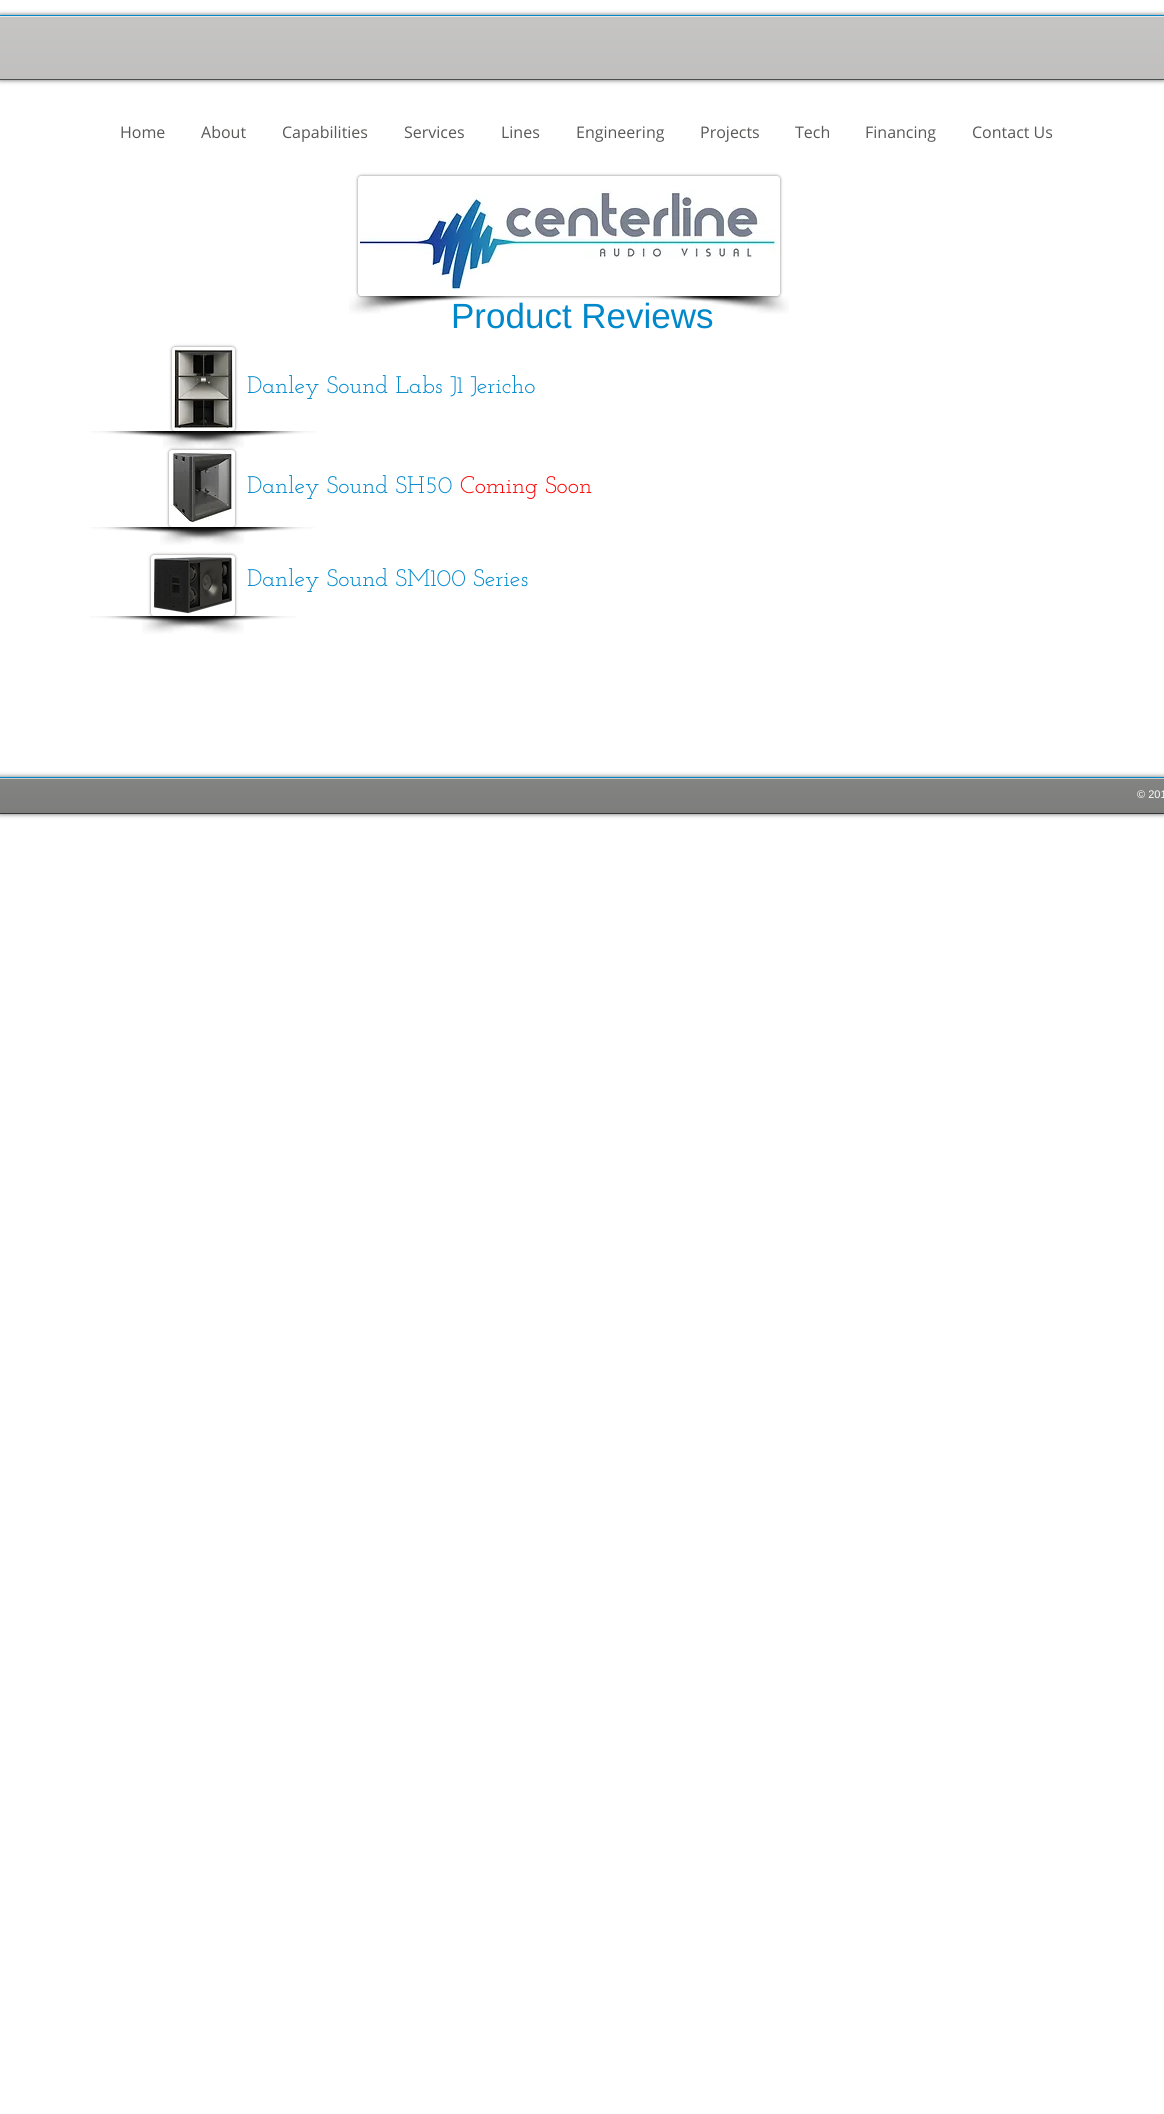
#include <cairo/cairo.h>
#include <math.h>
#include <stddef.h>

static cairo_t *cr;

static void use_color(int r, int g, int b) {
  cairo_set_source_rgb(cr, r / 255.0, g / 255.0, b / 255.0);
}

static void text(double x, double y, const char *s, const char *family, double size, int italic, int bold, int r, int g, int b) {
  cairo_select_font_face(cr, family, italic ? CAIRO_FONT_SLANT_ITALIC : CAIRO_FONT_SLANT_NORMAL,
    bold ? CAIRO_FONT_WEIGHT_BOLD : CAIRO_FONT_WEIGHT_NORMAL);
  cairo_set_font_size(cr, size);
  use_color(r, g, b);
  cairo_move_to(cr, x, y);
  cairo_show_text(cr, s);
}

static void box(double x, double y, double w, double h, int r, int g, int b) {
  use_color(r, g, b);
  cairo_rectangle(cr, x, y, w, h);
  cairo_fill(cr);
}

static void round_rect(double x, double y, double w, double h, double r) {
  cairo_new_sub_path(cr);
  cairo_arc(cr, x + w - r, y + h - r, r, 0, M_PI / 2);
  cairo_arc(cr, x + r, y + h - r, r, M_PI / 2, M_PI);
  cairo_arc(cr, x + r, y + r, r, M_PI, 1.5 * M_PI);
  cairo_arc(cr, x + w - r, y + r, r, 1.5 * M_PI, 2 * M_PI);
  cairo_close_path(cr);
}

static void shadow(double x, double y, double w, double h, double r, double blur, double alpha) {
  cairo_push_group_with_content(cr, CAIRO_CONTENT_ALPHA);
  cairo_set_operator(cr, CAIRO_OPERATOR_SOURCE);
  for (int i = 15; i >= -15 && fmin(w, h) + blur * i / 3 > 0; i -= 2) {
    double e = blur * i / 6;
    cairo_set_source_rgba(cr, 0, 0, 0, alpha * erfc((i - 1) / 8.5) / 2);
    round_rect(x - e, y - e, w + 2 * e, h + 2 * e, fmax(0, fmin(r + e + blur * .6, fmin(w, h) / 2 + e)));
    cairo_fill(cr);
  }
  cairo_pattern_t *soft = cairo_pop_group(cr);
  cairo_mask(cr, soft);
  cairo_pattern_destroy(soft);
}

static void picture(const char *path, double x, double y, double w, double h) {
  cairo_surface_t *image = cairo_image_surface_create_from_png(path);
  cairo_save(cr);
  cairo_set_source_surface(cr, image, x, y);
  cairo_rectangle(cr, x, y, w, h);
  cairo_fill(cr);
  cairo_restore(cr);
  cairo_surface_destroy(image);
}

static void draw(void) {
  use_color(255, 255, 255);
  cairo_paint(cr);
  use_color(0, 0, 0);
  shadow(0, 15, 1164, 65, 0, 2.5, 0.6);
  box(0, 17, 1164, 62, 177, 176, 175);
  picture("img_01.png", 0, 17, 1164, 62);
  box(0, 79, 1164, 1, 77, 77, 76);
  box(0, 16, 1164, 1, 232, 232, 231);
  box(0, 15, 1164, 1, 0, 136, 203);
  use_color(0, 0, 0);
  shadow(358, 176, 422, 120, 3, 1.5, 0.5);
  use_color(255, 255, 255);
  round_rect(359, 177, 420, 118, 2);
  cairo_fill_preserve(cr);
  cairo_stroke(cr);
  picture("img_02.png", 360, 190, 417, 101);
  picture("img_03.png", 349, 296, 154, 18);
  picture("img_04.png", 635, 296, 154, 18);
  use_color(0, 0, 0);
  shadow(172, 347, 63, 84, 3, 1.5, 0.5);
  use_color(255, 255, 255);
  round_rect(173, 348, 61, 82, 2);
  cairo_fill_preserve(cr);
  cairo_stroke(cr);
  picture("img_05.png", 174, 349, 59, 80);
  picture("img_07.png", 163, 431, 154, 18);
  picture("img_06.png", 90, 431, 154, 18);
  use_color(0, 0, 0);
  shadow(169, 450, 66, 77, 3, 1.5, 0.5);
  use_color(255, 255, 255);
  round_rect(170, 451, 64, 75, 2);
  cairo_fill_preserve(cr);
  cairo_stroke(cr);
  picture("img_08.png", 171, 452, 61, 71);
  picture("img_10.png", 160, 527, 154, 18);
  picture("img_09.png", 90, 527, 154, 18);
  use_color(0, 0, 0);
  shadow(151, 555, 84, 61, 3, 1.5, 0.5);
  use_color(255, 255, 255);
  round_rect(152, 556, 82, 59, 2);
  cairo_fill_preserve(cr);
  cairo_stroke(cr);
  picture("img_11.png", 153, 557, 79, 57);
  picture("img_13.png", 142, 616, 154, 18);
  picture("img_12.png", 90, 616, 154, 18);
  use_color(0, 0, 0);
  shadow(0, 777, 1164, 37, 0, 2.5, 0.6);
  box(0, 779, 1164, 34, 88, 88, 87);
  picture("img_14.png", 0, 779, 1164, 34);
  box(0, 813, 1164, 1, 50, 50, 50);
  box(0, 778, 1164, 1, 205, 205, 205);
  box(0, 777, 1164, 1, 0, 136, 203);
  text(120, 138, "Home", "Open Sans", 16, 0, 0, 88, 88, 87);
  text(201, 138, "About", "Open Sans", 16, 0, 0, 88, 88, 87);
  text(282, 138, "Capabilities", "Open Sans", 16, 0, 0, 88, 88, 87);
  text(404, 138, "Services", "Open Sans", 16, 0, 0, 88, 88, 87);
  text(501, 138, "Lines", "Open Sans", 16, 0, 0, 88, 88, 87);
  text(576, 138, "Engineering", "Open Sans", 16, 0, 0, 88, 88, 87);
  text(700, 138, "Projects", "Open Sans", 16, 0, 0, 88, 88, 87);
  text(795, 138, "Tech", "Open Sans", 16, 0, 0, 88, 88, 87);
  text(865, 138, "Financing", "Open Sans", 16, 0, 0, 88, 88, 87);
  text(972, 138, "Contact Us", "Open Sans", 16, 0, 0, 88, 88, 87);
  text(451, 328, "Product Reviews", "Liberation Sans", 35, 0, 0, 0, 136, 203);
  text(247, 393, "Danley Sound Labs J1 Jericho", "Josefin Slab", 24, 0, 0, 0, 136, 203);
  text(247, 493, "Danley Sound SH50", "Josefin Slab", 24, 0, 0, 0, 136, 203);
  text(460, 493, "Coming Soon", "Josefin Slab", 24, 0, 0, 251, 3, 3);
  text(247, 586, "Danley Sound SM100 Series", "Josefin Slab", 24, 0, 0, 0, 136, 203);
  text(1137, 798, "© 201", "Liberation Sans", 11, 0, 0, 255, 255, 255);
}

int main(void) {
  cairo_surface_t *surface = cairo_image_surface_create(CAIRO_FORMAT_RGB24, 1164, 2114);
  cr = cairo_create(surface);
  cairo_font_options_t *options = cairo_font_options_create();
  cairo_font_options_set_hint_metrics(options, CAIRO_HINT_METRICS_OFF);
  cairo_font_options_set_hint_style(options, CAIRO_HINT_STYLE_NONE);
  cairo_set_font_options(cr, options);
  cairo_set_miter_limit(cr, 4);
  draw();
  cairo_surface_write_to_png(surface, "out.png");
  cairo_font_options_destroy(options);
  cairo_destroy(cr);
  cairo_surface_destroy(surface);
  return 0;
}
